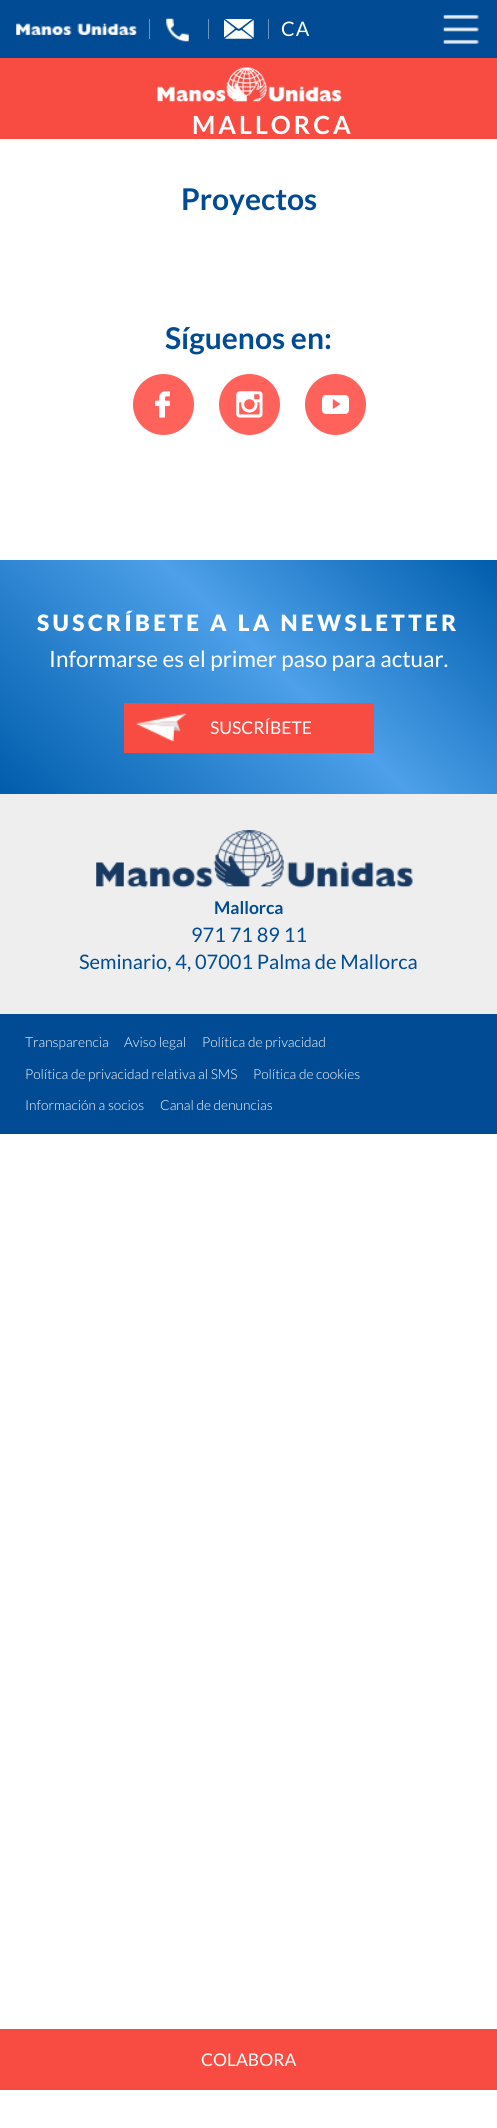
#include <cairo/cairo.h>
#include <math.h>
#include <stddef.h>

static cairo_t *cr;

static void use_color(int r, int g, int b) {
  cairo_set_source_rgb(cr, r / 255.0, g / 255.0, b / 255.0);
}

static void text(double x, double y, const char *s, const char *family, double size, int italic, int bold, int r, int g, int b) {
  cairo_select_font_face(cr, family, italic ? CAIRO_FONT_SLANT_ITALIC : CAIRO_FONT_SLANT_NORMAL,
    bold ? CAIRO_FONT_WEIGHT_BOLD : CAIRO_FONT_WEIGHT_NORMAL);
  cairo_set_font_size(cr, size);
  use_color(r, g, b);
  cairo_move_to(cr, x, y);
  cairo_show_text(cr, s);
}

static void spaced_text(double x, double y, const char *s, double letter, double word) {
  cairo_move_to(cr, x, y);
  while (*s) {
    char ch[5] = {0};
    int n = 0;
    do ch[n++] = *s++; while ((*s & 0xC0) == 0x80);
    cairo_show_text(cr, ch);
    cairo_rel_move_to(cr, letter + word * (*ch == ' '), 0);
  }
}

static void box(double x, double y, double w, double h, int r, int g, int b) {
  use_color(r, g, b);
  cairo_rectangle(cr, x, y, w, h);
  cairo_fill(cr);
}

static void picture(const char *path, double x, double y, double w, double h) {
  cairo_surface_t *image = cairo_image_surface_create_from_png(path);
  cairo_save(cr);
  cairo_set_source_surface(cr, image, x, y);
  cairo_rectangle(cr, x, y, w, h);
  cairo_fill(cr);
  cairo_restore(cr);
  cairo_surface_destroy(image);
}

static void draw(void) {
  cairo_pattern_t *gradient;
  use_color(255, 255, 255);
  cairo_paint(cr);
  box(0, 0, 497, 58, 0, 75, 147);
  picture("img_01.png", 16, 23, 121, 12);
  box(149, 19, 1, 20, 105, 149, 191);
  picture("img_02.png", 166, 18, 23, 24);
  box(208, 19, 1, 20, 105, 149, 191);
  picture("img_03.png", 224, 19, 30, 20);
  box(268, 19, 1, 20, 105, 149, 191);
  picture("img_04.png", 443, 14, 36, 30);
  box(0, 58, 497, 81, 248, 75, 65);
  picture("img_05.png", 157, 67, 185, 35);
  box(0, 2029, 497, 61, 248, 75, 65);
  use_color(255, 98, 90);
  cairo_arc(cr, 163.5, 404.5, 30.5, 0, 2 * M_PI);
  cairo_fill(cr);
  picture("img_06.png", 155, 391, 15, 27);
  cairo_arc(cr, 249.5, 404.5, 30.5, 0, 2 * M_PI);
  cairo_fill(cr);
  picture("img_07.png", 236, 391, 27, 27);
  cairo_arc(cr, 335.5, 404.5, 30.5, 0, 2 * M_PI);
  cairo_fill(cr);
  picture("img_08.png", 321, 395, 28, 19);
  gradient = cairo_pattern_create_linear(423, 490, 74, 863);
  cairo_pattern_add_color_stop_rgba(gradient, 0, 0, 0.365, 0.675, 1);
  cairo_pattern_add_color_stop_rgba(gradient, 0.45, 0.302, 0.627, 0.914, 1);
  cairo_pattern_add_color_stop_rgba(gradient, 1, 0, 0.365, 0.675, 1);
  cairo_set_source(cr, gradient);
  cairo_pattern_destroy(gradient);
  cairo_rectangle(cr, 0, 560, 497, 234);
  cairo_fill(cr);
  box(124, 703, 250, 50, 248, 75, 65);
  picture("img_09.png", 136, 713, 51, 29);
  box(0, 794, 497, 220, 238, 238, 238);
  picture("img_10.png", 96, 830, 317, 58);
  box(0, 1014, 497, 120, 0, 75, 147);
  cairo_select_font_face(cr, "Lato", CAIRO_FONT_SLANT_NORMAL, CAIRO_FONT_WEIGHT_NORMAL);
  cairo_set_font_size(cr, 20);
  use_color(255, 255, 255);
  spaced_text(281, 36, "CA", 1, 0);
  cairo_select_font_face(cr, "Lato", CAIRO_FONT_SLANT_NORMAL, CAIRO_FONT_WEIGHT_BOLD);
  cairo_set_font_size(cr, 25);
  spaced_text(192, 134, "MALLORCA", 3, 0);
  text(201, 2066, "COLABORA", "Lato", 17.5, 0, 0, 255, 255, 255);
  text(181, 210, "Proyectos", "Lato", 30, 0, 1, 0, 75, 147);
  text(165, 349, "Síguenos en:", "Lato", 30, 0, 1, 0, 75, 147);
  cairo_select_font_face(cr, "Lato Black", CAIRO_FONT_SLANT_NORMAL, CAIRO_FONT_WEIGHT_NORMAL);
  cairo_set_font_size(cr, 22.5);
  use_color(255, 255, 255);
  spaced_text(37, 631, "SUSCRÍBETE A LA NEWSLETTER", 3.4, 0);
  text(49, 667, "Informarse es el primer paso para actuar.", "Lato", 22.5, 0, 0, 255, 255, 255);
  text(210, 734, "SUSCRÍBETE", "Lato", 17.5, 0, 0, 255, 255, 255);
  text(214, 914, "Mallorca", "Lato", 17.5, 0, 1, 0, 75, 147);
  text(191, 942, "971 71 89 11", "Lato", 20, 0, 0, 0, 75, 147);
  text(79, 969, "Seminario, 4, 07001 Palma de Mallorca", "Lato", 20, 0, 0, 0, 75, 147);
  text(25, 1047, "Transparencia", "Lato Light", 13.75, 0, 0, 255, 255, 255);
  text(124, 1047, "Aviso legal", "Lato Light", 13.75, 0, 0, 255, 255, 255);
  text(202, 1047, "Política de privacidad", "Lato Light", 13.75, 0, 0, 255, 255, 255);
  text(25, 1079, "Política de privacidad relativa al SMS", "Lato Light", 13.75, 0, 0, 255, 255, 255);
  text(253, 1079, "Política de cookies", "Lato Light", 13.75, 0, 0, 255, 255, 255);
  text(25, 1110, "Información a socios", "Lato Light", 13.75, 0, 0, 255, 255, 255);
  text(160, 1110, "Canal de denuncias", "Lato Light", 13.75, 0, 0, 255, 255, 255);
}

int main(void) {
  cairo_surface_t *surface = cairo_image_surface_create(CAIRO_FORMAT_RGB24, 497, 2128);
  cr = cairo_create(surface);
  cairo_font_options_t *options = cairo_font_options_create();
  cairo_font_options_set_hint_metrics(options, CAIRO_HINT_METRICS_OFF);
  cairo_font_options_set_hint_style(options, CAIRO_HINT_STYLE_NONE);
  cairo_set_font_options(cr, options);
  cairo_set_miter_limit(cr, 4);
  draw();
  cairo_surface_write_to_png(surface, "out.png");
  cairo_font_options_destroy(options);
  cairo_destroy(cr);
  cairo_surface_destroy(surface);
  return 0;
}
